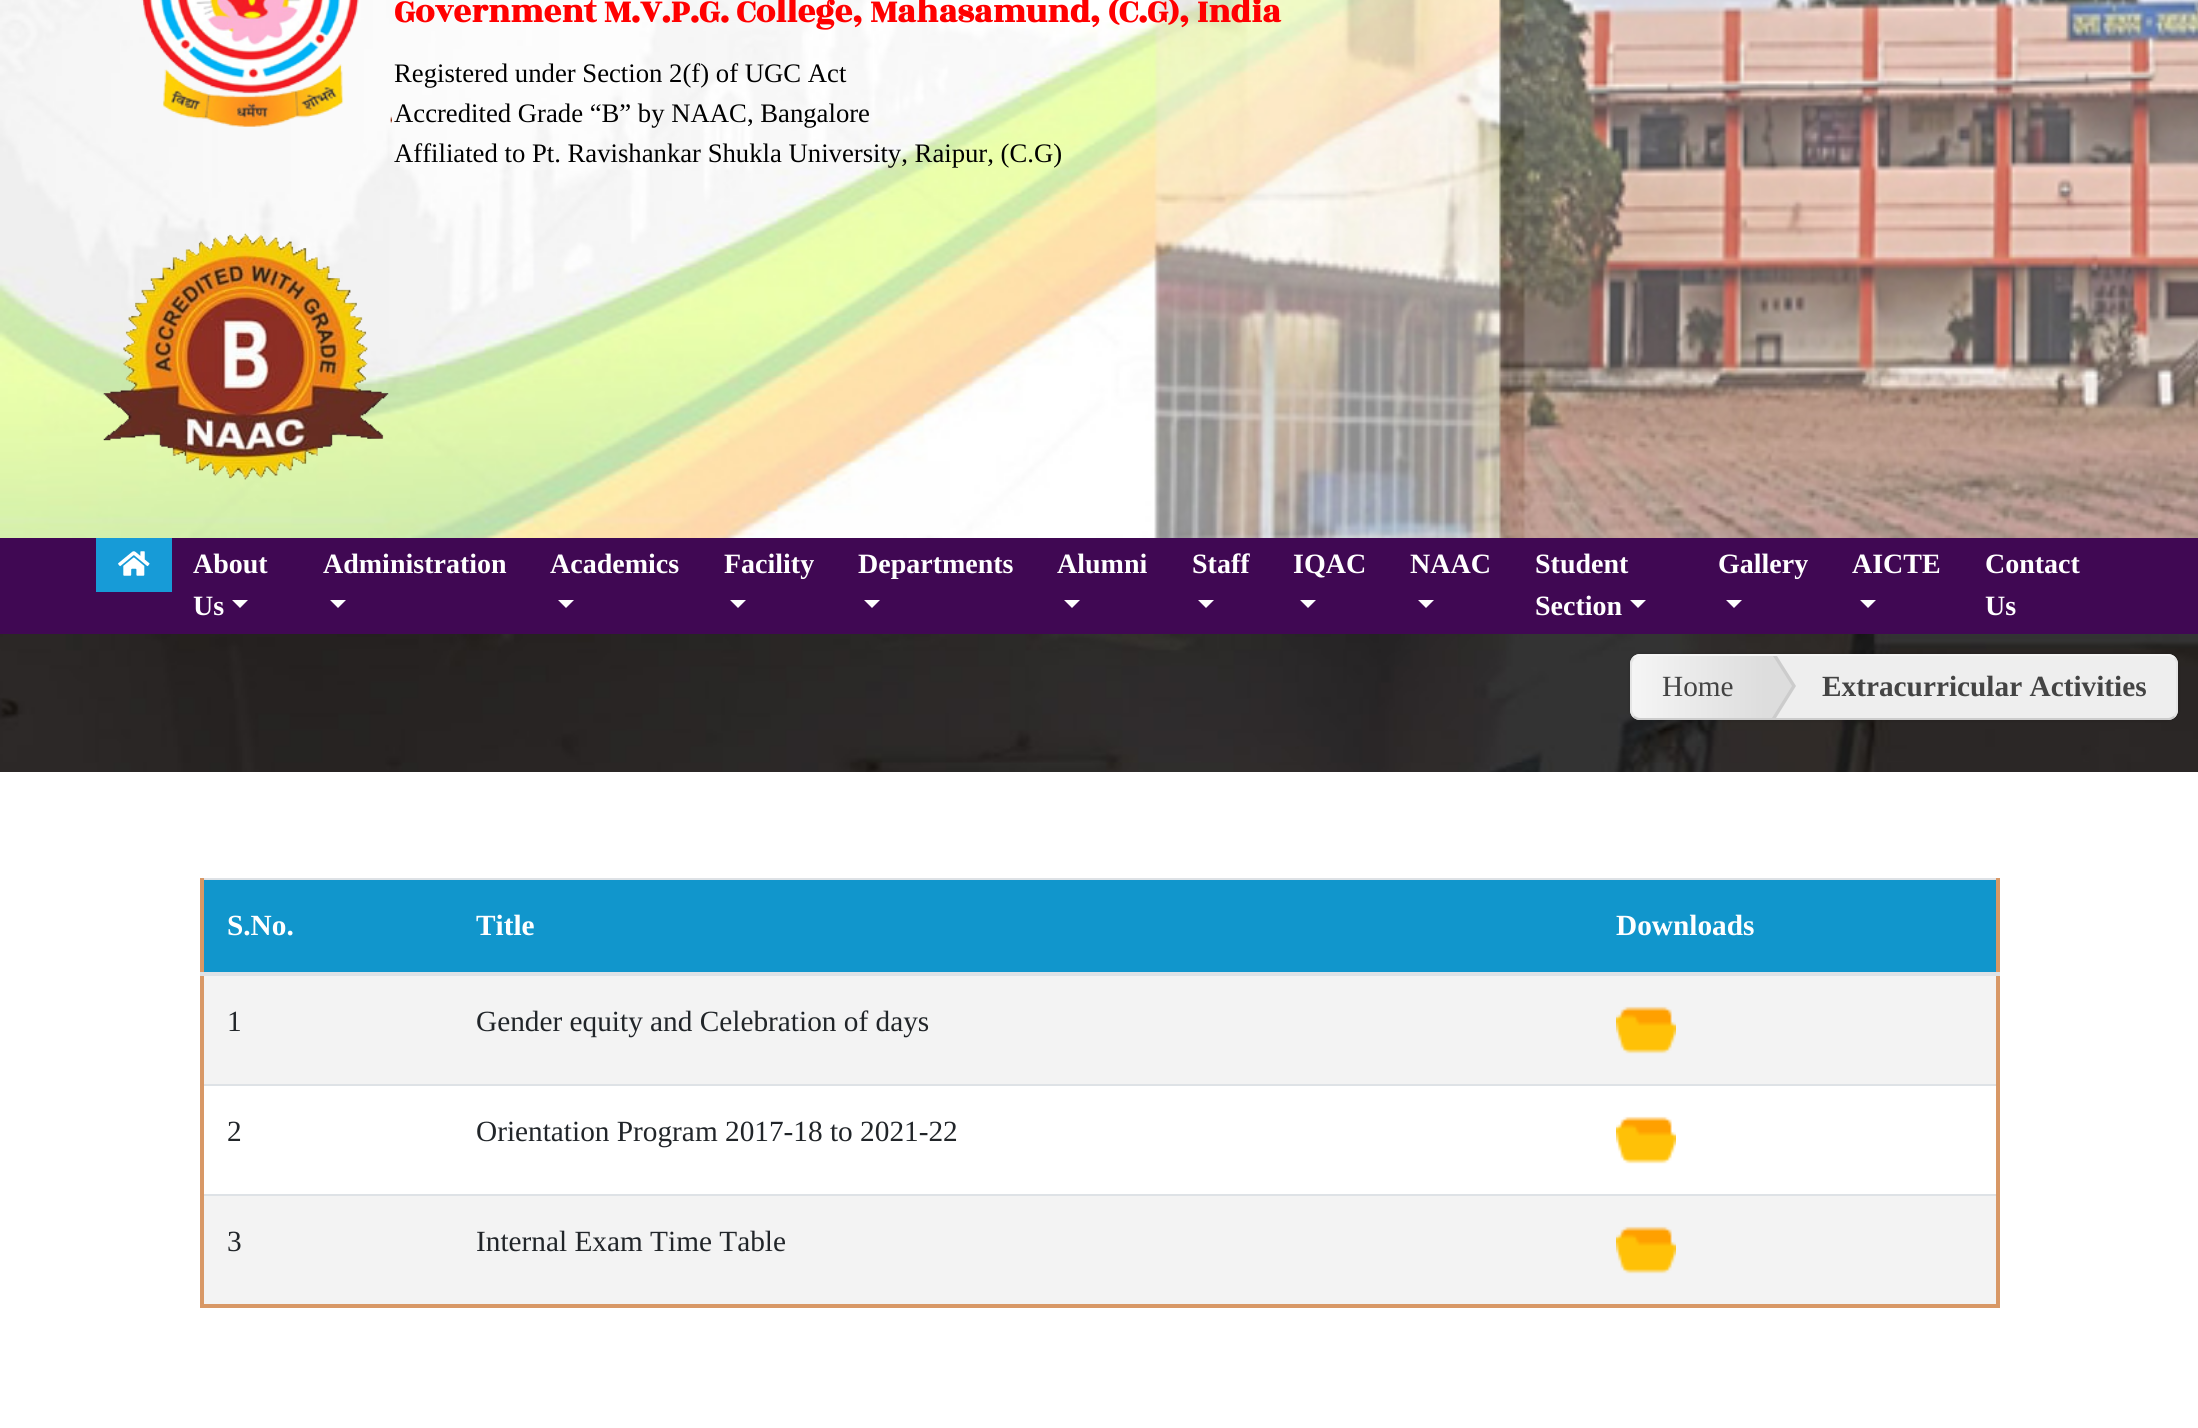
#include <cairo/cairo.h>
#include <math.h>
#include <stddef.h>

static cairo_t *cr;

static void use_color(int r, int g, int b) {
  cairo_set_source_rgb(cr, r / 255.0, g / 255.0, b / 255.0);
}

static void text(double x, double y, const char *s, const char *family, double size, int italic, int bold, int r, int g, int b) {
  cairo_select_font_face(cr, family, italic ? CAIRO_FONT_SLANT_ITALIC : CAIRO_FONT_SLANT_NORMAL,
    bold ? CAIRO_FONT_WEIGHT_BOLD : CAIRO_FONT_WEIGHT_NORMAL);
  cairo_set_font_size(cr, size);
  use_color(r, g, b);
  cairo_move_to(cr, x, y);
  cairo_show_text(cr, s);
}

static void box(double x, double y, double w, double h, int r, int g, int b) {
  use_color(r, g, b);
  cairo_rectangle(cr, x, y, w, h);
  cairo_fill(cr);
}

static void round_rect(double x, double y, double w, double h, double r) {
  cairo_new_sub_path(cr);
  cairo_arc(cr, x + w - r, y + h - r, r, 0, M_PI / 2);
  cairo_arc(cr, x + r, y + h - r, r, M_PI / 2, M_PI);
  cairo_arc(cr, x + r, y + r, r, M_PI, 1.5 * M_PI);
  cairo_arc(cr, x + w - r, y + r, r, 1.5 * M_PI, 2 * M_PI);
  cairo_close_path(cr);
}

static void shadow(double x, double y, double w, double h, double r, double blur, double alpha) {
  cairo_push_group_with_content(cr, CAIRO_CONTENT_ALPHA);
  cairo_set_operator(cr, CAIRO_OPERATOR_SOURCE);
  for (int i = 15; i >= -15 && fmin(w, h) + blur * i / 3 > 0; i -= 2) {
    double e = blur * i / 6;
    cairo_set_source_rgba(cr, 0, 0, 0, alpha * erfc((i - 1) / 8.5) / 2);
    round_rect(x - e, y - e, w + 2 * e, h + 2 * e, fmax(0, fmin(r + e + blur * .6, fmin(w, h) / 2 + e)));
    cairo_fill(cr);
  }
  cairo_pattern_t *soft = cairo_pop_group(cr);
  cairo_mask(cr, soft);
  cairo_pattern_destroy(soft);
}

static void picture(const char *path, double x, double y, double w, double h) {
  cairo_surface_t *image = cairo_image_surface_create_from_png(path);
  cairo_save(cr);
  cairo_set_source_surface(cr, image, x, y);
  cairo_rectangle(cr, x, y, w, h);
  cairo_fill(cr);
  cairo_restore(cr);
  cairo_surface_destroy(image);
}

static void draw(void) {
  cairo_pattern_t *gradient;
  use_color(255, 255, 255);
  cairo_paint(cr);
  picture("img_01.png", 0, 0, 2198, 538);
  picture("img_02.png", 141, 0, 251, 127);
  picture("img_03.png", 103, 233, 286, 247);
  box(0, 538, 2198, 96, 64, 8, 83);
  box(96, 538, 76, 54, 23, 155, 215);
  picture("img_04.png", 118, 551, 32, 25);
  use_color(255, 255, 255);
  cairo_new_path(cr);
  cairo_move_to(cr, 232, 600);
  cairo_line_to(cr, 248, 600);
  cairo_line_to(cr, 240, 608);
  cairo_close_path(cr);
  cairo_fill(cr);
  cairo_new_path(cr);
  cairo_move_to(cr, 330, 600);
  cairo_line_to(cr, 346, 600);
  cairo_line_to(cr, 338, 608);
  cairo_close_path(cr);
  cairo_fill(cr);
  cairo_new_path(cr);
  cairo_move_to(cr, 558, 600);
  cairo_line_to(cr, 574, 600);
  cairo_line_to(cr, 566, 608);
  cairo_close_path(cr);
  cairo_fill(cr);
  cairo_new_path(cr);
  cairo_move_to(cr, 730, 600);
  cairo_line_to(cr, 746, 600);
  cairo_line_to(cr, 738, 608);
  cairo_close_path(cr);
  cairo_fill(cr);
  cairo_new_path(cr);
  cairo_move_to(cr, 864, 600);
  cairo_line_to(cr, 880, 600);
  cairo_line_to(cr, 872, 608);
  cairo_close_path(cr);
  cairo_fill(cr);
  cairo_new_path(cr);
  cairo_move_to(cr, 1064, 600);
  cairo_line_to(cr, 1080, 600);
  cairo_line_to(cr, 1072, 608);
  cairo_close_path(cr);
  cairo_fill(cr);
  cairo_new_path(cr);
  cairo_move_to(cr, 1198, 600);
  cairo_line_to(cr, 1214, 600);
  cairo_line_to(cr, 1206, 608);
  cairo_close_path(cr);
  cairo_fill(cr);
  cairo_new_path(cr);
  cairo_move_to(cr, 1300, 600);
  cairo_line_to(cr, 1316, 600);
  cairo_line_to(cr, 1308, 608);
  cairo_close_path(cr);
  cairo_fill(cr);
  cairo_new_path(cr);
  cairo_move_to(cr, 1418, 600);
  cairo_line_to(cr, 1434, 600);
  cairo_line_to(cr, 1426, 608);
  cairo_close_path(cr);
  cairo_fill(cr);
  cairo_new_path(cr);
  cairo_move_to(cr, 1630, 600);
  cairo_line_to(cr, 1646, 600);
  cairo_line_to(cr, 1638, 608);
  cairo_close_path(cr);
  cairo_fill(cr);
  cairo_new_path(cr);
  cairo_move_to(cr, 1726, 600);
  cairo_line_to(cr, 1742, 600);
  cairo_line_to(cr, 1734, 608);
  cairo_close_path(cr);
  cairo_fill(cr);
  cairo_new_path(cr);
  cairo_move_to(cr, 1860, 600);
  cairo_line_to(cr, 1876, 600);
  cairo_line_to(cr, 1868, 608);
  cairo_close_path(cr);
  cairo_fill(cr);
  picture("img_05.png", 0, 634, 2198, 138);
  use_color(0, 0, 0);
  shadow(1630, 654, 548, 66, 10, 2, 0.2);
  use_color(238, 238, 238);
  round_rect(1630, 654, 548, 66, 10);
  cairo_fill(cr);
  cairo_new_path(cr);
  cairo_move_to(cr, 1633.5, 657.5);
  cairo_curve_to(cr, 1635.5, 656, 1637.5, 655, 1640, 655);
  cairo_line_to(cr, 2168, 655);
  cairo_curve_to(cr, 2170.5, 655, 2172.5, 656, 2174.5, 657.5);
  use_color(245, 245, 245);
  cairo_stroke(cr);
  cairo_new_path(cr);
  cairo_move_to(cr, 2174.5, 657.5);
  cairo_curve_to(cr, 2176, 659.5, 2177, 661.5, 2177, 664);
  cairo_line_to(cr, 2177, 710);
  cairo_curve_to(cr, 2177, 712.5, 2176, 714.5, 2174.5, 716.5);
  use_color(229, 229, 229);
  cairo_stroke(cr);
  cairo_new_path(cr);
  cairo_move_to(cr, 2174.5, 716.5);
  cairo_curve_to(cr, 2172.5, 718, 2170.5, 719, 2168, 719);
  cairo_line_to(cr, 1640, 719);
  cairo_curve_to(cr, 1637.5, 719, 1635.5, 718, 1633.5, 716.5);
  use_color(204, 204, 204);
  cairo_stroke(cr);
  cairo_new_path(cr);
  cairo_move_to(cr, 1633.5, 716.5);
  cairo_curve_to(cr, 1632, 714.5, 1631, 712.5, 1631, 710);
  cairo_line_to(cr, 1631, 664);
  cairo_curve_to(cr, 1631, 661.5, 1632, 659.5, 1633.5, 657.5);
  use_color(229, 229, 229);
  cairo_stroke(cr);
  gradient = cairo_pattern_create_linear(1632, 687, 1764, 687);
  cairo_pattern_add_color_stop_rgba(gradient, 0, 0.961, 0.961, 0.961, 1);
  cairo_pattern_add_color_stop_rgba(gradient, 1, 0.867, 0.867, 0.867, 1);
  cairo_set_source(cr, gradient);
  cairo_pattern_destroy(gradient);
  cairo_new_path(cr);
  cairo_move_to(cr, 1642, 656);
  cairo_line_to(cr, 1764, 656);
  cairo_line_to(cr, 1764, 718);
  cairo_line_to(cr, 1642, 718);
  cairo_curve_to(cr, 1636.5, 718, 1632, 713.5, 1632, 708);
  cairo_line_to(cr, 1632, 666);
  cairo_curve_to(cr, 1632, 660.5, 1636.5, 656, 1642, 656);
  cairo_close_path(cr);
  cairo_fill(cr);
  use_color(204, 204, 204);
  cairo_new_path(cr);
  cairo_move_to(cr, 1777, 656);
  cairo_line_to(cr, 1796, 686);
  cairo_line_to(cr, 1776, 718);
  cairo_line_to(cr, 1768, 718);
  cairo_line_to(cr, 1768, 656);
  cairo_close_path(cr);
  cairo_fill(cr);
  use_color(221, 221, 221);
  cairo_new_path(cr);
  cairo_move_to(cr, 1773, 656);
  cairo_line_to(cr, 1792, 686);
  cairo_line_to(cr, 1772, 718);
  cairo_line_to(cr, 1764, 718);
  cairo_line_to(cr, 1764, 656);
  cairo_close_path(cr);
  cairo_fill(cr);
  box(200, 878, 1798, 2, 222, 226, 230);
  box(200, 1084, 1798, 2, 222, 226, 230);
  box(200, 1194, 1798, 2, 222, 226, 230);
  box(1996, 878, 4, 430, 216, 152, 102);
  box(200, 1304, 1800, 4, 216, 152, 102);
  box(200, 878, 4, 430, 216, 152, 102);
  box(204, 880, 1792, 92, 17, 150, 204);
  box(200, 972, 1800, 4, 222, 226, 230);
  box(204, 976, 1792, 108, 243, 243, 243);
  picture("img_06.png", 1616, 1006, 60, 48);
  picture("img_07.png", 1616, 1116, 60, 48);
  box(204, 1196, 1792, 108, 243, 243, 243);
  picture("img_06.png", 1616, 1226, 60, 48);
  text(394, 22, "Government M.V.P.G. College, Mahasamund, (C.G), India", "Rozha One", 34.7, 0, 1, 255, 0, 0);
  text(394, 82, "Registered under Section 2(f) of UGC Act", "Liberation Serif", 26.7, 0, 0, 0, 0, 0);
  text(394, 122, "Accredited Grade “B” by NAAC, Bangalore", "Liberation Serif", 26.7, 0, 0, 0, 0, 0);
  text(394, 162, "Affiliated to Pt. Ravishankar Shukla University, Raipur, (C.G)", "Liberation Serif", 26.7, 0, 0, 0, 0, 0);
  text(193, 573, "About", "Liberation Serif", 28, 0, 1, 255, 255, 255);
  text(193, 615, "Us", "Liberation Serif", 28, 0, 1, 255, 255, 255);
  text(323, 573, "Administration", "Liberation Serif", 28, 0, 1, 255, 255, 255);
  text(550, 573, "Academics", "Liberation Serif", 28, 0, 1, 255, 255, 255);
  text(724, 573, "Facility", "Liberation Serif", 28, 0, 1, 255, 255, 255);
  text(858, 573, "Departments", "Liberation Serif", 28, 0, 1, 255, 255, 255);
  text(1057, 573, "Alumni", "Liberation Serif", 28, 0, 1, 255, 255, 255);
  text(1192, 573, "Staff", "Liberation Serif", 28, 0, 1, 255, 255, 255);
  text(1293, 573, "IQAC", "Liberation Serif", 28, 0, 1, 255, 255, 255);
  text(1410, 573, "NAAC", "Liberation Serif", 28, 0, 1, 255, 255, 255);
  text(1535, 573, "Student", "Liberation Serif", 28, 0, 1, 255, 255, 255);
  text(1535, 615, "Section", "Liberation Serif", 28, 0, 1, 255, 255, 255);
  text(1718, 573, "Gallery", "Liberation Serif", 28, 0, 1, 255, 255, 255);
  text(1852, 573, "AICTE", "Liberation Serif", 28, 0, 1, 255, 255, 255);
  text(1985, 573, "Contact", "Liberation Serif", 28, 0, 1, 255, 255, 255);
  text(1985, 615, "Us", "Liberation Serif", 28, 0, 1, 255, 255, 255);
  text(1662, 696, "Home", "Liberation Serif", 29.3, 0, 0, 68, 68, 68);
  text(1822, 696, "Extracurricular Activities", "Liberation Serif", 29.3, 0, 1, 68, 68, 68);
  text(227, 935, "S.No.", "Liberation Serif", 29.3, 0, 1, 255, 255, 255);
  text(476, 935, "Title", "Liberation Serif", 29.3, 0, 1, 255, 255, 255);
  text(1616, 935, "Downloads", "Liberation Serif", 29.3, 0, 1, 255, 255, 255);
  text(227, 1031, "1", "Liberation Serif", 29.3, 0, 0, 33, 37, 41);
  text(476, 1031, "Gender equity and Celebration of days", "Liberation Serif", 29.3, 0, 0, 33, 37, 41);
  text(227, 1141, "2", "Liberation Serif", 29.3, 0, 0, 33, 37, 41);
  text(476, 1141, "Orientation Program 2017-18 to 2021-22", "Liberation Serif", 29.3, 0, 0, 33, 37, 41);
  text(227, 1251, "3", "Liberation Serif", 29.3, 0, 0, 33, 37, 41);
  text(476, 1251, "Internal Exam Time Table", "Liberation Serif", 29.3, 0, 0, 33, 37, 41);
}

int main(void) {
  cairo_surface_t *surface = cairo_image_surface_create(CAIRO_FORMAT_RGB24, 2198, 1428);
  cr = cairo_create(surface);
  cairo_font_options_t *options = cairo_font_options_create();
  cairo_font_options_set_hint_metrics(options, CAIRO_HINT_METRICS_OFF);
  cairo_font_options_set_hint_style(options, CAIRO_HINT_STYLE_NONE);
  cairo_set_font_options(cr, options);
  cairo_set_miter_limit(cr, 4);
  draw();
  cairo_surface_write_to_png(surface, "out.png");
  cairo_font_options_destroy(options);
  cairo_destroy(cr);
  cairo_surface_destroy(surface);
  return 0;
}
